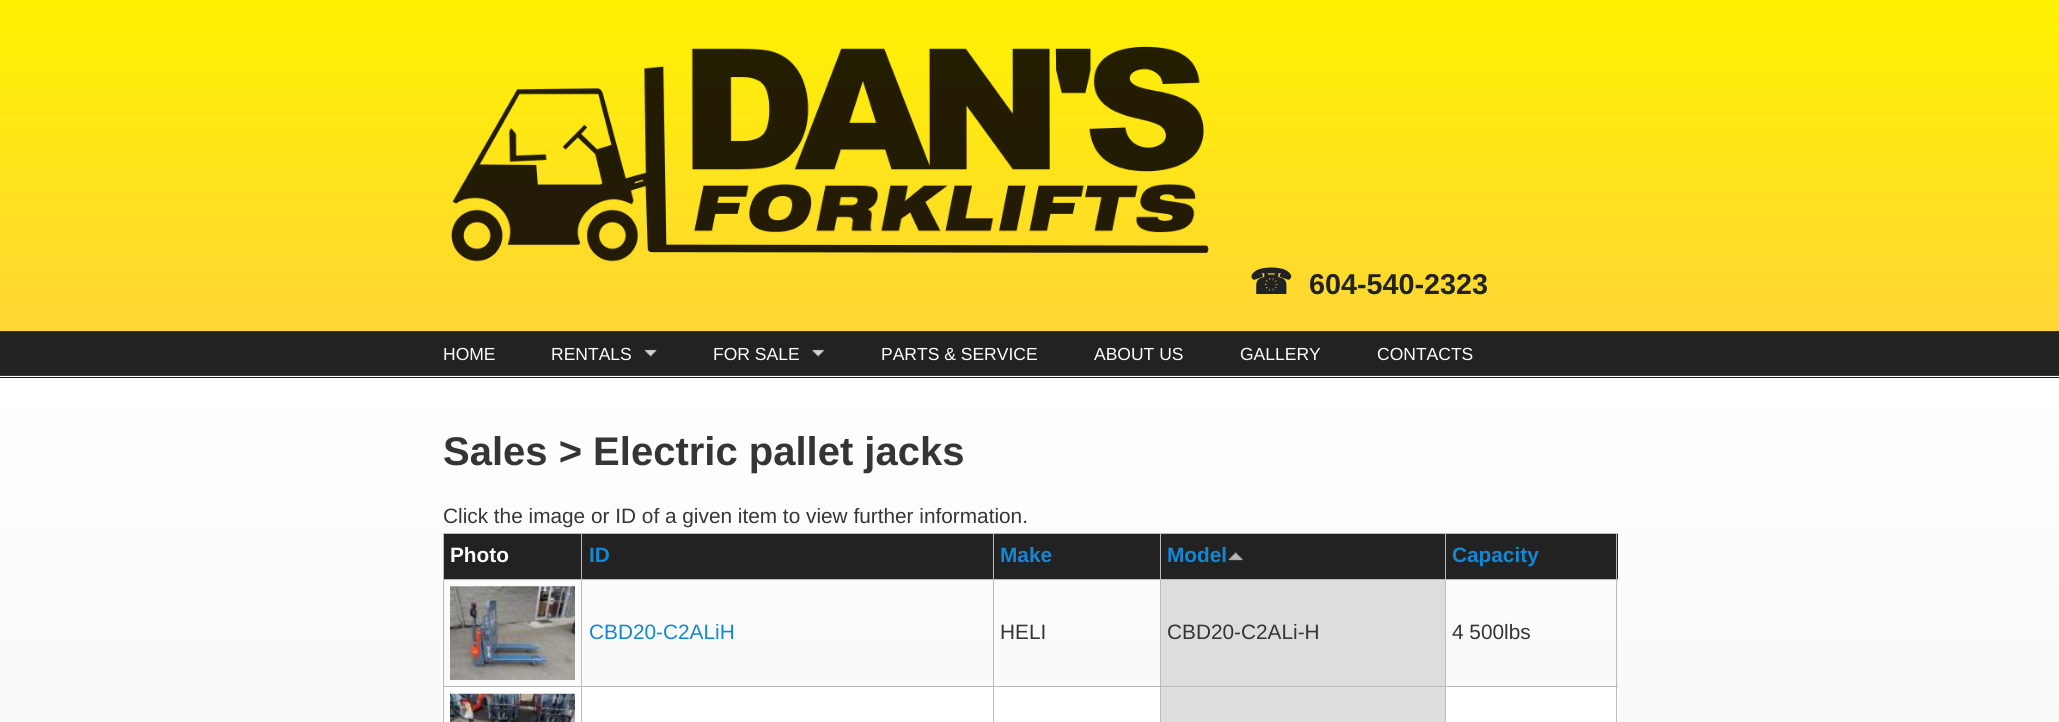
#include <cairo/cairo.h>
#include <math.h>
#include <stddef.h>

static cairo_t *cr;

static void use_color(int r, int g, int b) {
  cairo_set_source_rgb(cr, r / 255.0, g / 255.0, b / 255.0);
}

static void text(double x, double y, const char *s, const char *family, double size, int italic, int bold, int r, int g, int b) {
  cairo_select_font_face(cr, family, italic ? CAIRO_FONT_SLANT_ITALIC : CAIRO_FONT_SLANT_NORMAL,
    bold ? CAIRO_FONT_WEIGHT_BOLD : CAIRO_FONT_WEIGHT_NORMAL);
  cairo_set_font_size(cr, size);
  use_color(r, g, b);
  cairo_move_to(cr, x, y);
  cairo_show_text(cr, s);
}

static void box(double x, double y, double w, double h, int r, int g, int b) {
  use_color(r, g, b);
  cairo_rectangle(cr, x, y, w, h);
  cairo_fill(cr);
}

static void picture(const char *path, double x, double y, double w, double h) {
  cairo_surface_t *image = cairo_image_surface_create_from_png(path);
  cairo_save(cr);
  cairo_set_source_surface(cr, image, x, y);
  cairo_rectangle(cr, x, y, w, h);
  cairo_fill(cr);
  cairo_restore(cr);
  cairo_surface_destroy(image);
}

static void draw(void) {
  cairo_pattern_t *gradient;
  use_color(26, 26, 26);
  cairo_paint(cr);
  gradient = cairo_pattern_create_linear(1030, 0, 1030, 331);
  cairo_pattern_add_color_stop_rgba(gradient, 0, 1, 0.949, 0, 1);
  cairo_pattern_add_color_stop_rgba(gradient, 1, 1, 0.839, 0.208, 1);
  cairo_set_source(cr, gradient);
  cairo_pattern_destroy(gradient);
  cairo_rectangle(cr, 0, 0, 2059, 331);
  cairo_fill(cr);
  picture("img_01.png", 451, 46, 758, 216);
  box(0, 332, 2059, 43, 34, 34, 34);
  box(0, 331, 2059, 1, 53, 53, 53);
  box(0, 375, 2059, 1, 53, 53, 53);
  picture("img_02.png", 644, 349, 13, 8);
  picture("img_03.png", 812, 349, 12, 8);
  box(0, 376, 2059, 1, 252, 252, 252);
  gradient = cairo_pattern_create_linear(1030, 377, 1030, 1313);
  cairo_pattern_add_color_stop_rgba(gradient, 0, 1, 1, 1, 1);
  cairo_pattern_add_color_stop_rgba(gradient, 1, 0.937, 0.937, 0.937, 1);
  cairo_set_source(cr, gradient);
  cairo_pattern_destroy(gradient);
  cairo_rectangle(cr, 0, 378, 2059, 344);
  cairo_fill(cr);
  box(444, 534, 549, 45, 34, 34, 34);
  box(1445, 533, 173, 1, 187, 187, 187);
  box(1445, 579, 173, 1, 187, 187, 187);
  box(444, 687, 1174, 35, 255, 255, 255);
  box(1445, 686, 173, 1, 187, 187, 187);
  box(1445, 686, 1, 36, 187, 187, 187);
  box(1160, 686, 286, 1, 187, 187, 187);
  box(1445, 579, 1, 109, 187, 187, 187);
  box(1160, 579, 286, 1, 187, 187, 187);
  box(1445, 533, 1, 47, 187, 187, 187);
  box(1160, 533, 286, 1, 187, 187, 187);
  box(1160, 686, 1, 36, 187, 187, 187);
  box(993, 686, 168, 1, 187, 187, 187);
  box(1160, 579, 1, 109, 187, 187, 187);
  box(993, 579, 168, 1, 187, 187, 187);
  box(1160, 533, 1, 47, 187, 187, 187);
  box(993, 533, 168, 1, 187, 187, 187);
  box(993, 686, 1, 36, 187, 187, 187);
  box(581, 686, 413, 1, 187, 187, 187);
  box(993, 579, 1, 109, 187, 187, 187);
  box(581, 579, 413, 1, 187, 187, 187);
  box(993, 533, 1, 47, 187, 187, 187);
  box(581, 533, 413, 1, 187, 187, 187);
  box(581, 686, 1, 36, 187, 187, 187);
  box(443, 686, 140, 1, 187, 187, 187);
  box(581, 579, 1, 109, 187, 187, 187);
  box(443, 579, 140, 1, 187, 187, 187);
  box(581, 533, 1, 47, 187, 187, 187);
  box(443, 533, 140, 1, 187, 187, 187);
  box(443, 686, 1, 36, 187, 187, 187);
  box(443, 579, 1, 109, 187, 187, 187);
  box(443, 533, 1, 47, 187, 187, 187);
  box(994, 534, 166, 45, 34, 34, 34);
  box(1161, 534, 284, 45, 34, 34, 34);
  picture("img_04.png", 1228, 552, 15, 9);
  box(1446, 534, 172, 45, 34, 34, 34);
  box(1616, 686, 1, 36, 187, 187, 187);
  box(1616, 579, 1, 109, 187, 187, 187);
  box(1616, 533, 1, 47, 187, 187, 187);
  picture("img_05.png", 450, 586, 125, 94);
  box(1161, 580, 284, 106, 221, 221, 221);
  picture("img_06.png", 450, 693, 125, 29);
  box(1161, 687, 284, 35, 221, 221, 221);
  text(1249, 294, "☎", "DejaVu Sans", 35, 0, 1, 34, 34, 34);
  text(1309, 294, "604-540-2323", "Liberation Sans", 28.75, 0, 1, 34, 34, 34);
  text(443, 360, "HOME", "Liberation Sans", 17.5, 0, 0, 255, 255, 255);
  text(551, 360, "RENTALS", "Liberation Sans", 17.5, 0, 0, 255, 255, 255);
  text(713, 360, "FOR SALE", "Liberation Sans", 17.5, 0, 0, 255, 255, 255);
  text(881, 360, "PARTS & SERVICE", "Liberation Sans", 17.5, 0, 0, 255, 255, 255);
  text(1094, 360, "ABOUT US", "Liberation Sans", 17.5, 0, 0, 255, 255, 255);
  text(1240, 360, "GALLERY", "Liberation Sans", 17.5, 0, 0, 255, 255, 255);
  text(1377, 360, "CONTACTS", "Liberation Sans", 17.5, 0, 0, 255, 255, 255);
  text(443, 465, "Sales > Electric pallet jacks", "Liberation Sans", 40, 0, 1, 53, 53, 53);
  text(443, 523, "Click the image or ID of a given item to view further information.", "Liberation Sans", 20.8, 0, 0, 53, 53, 53);
  text(450, 562, "Photo", "Liberation Sans", 20.8, 0, 1, 255, 255, 255);
  text(589, 562, "ID", "Liberation Sans", 20.8, 0, 1, 20, 135, 212);
  text(1000, 562, "Make", "Liberation Sans", 20.8, 0, 1, 20, 135, 212);
  text(1167, 562, "Model", "Liberation Sans", 20.8, 0, 1, 20, 135, 212);
  text(1452, 562, "Capacity", "Liberation Sans", 20.8, 0, 1, 20, 135, 212);
  text(589, 639, "CBD20-C2ALiH", "Liberation Sans", 20.8, 0, 0, 20, 135, 212);
  text(1000, 639, "HELI", "Liberation Sans", 20.8, 0, 0, 53, 53, 53);
  text(1167, 639, "CBD20-C2ALi-H", "Liberation Sans", 20.8, 0, 0, 53, 53, 53);
  text(1452, 639, "4 500lbs", "Liberation Sans", 20.8, 0, 0, 53, 53, 53);
}

int main(void) {
  cairo_surface_t *surface = cairo_image_surface_create(CAIRO_FORMAT_RGB24, 2059, 722);
  cr = cairo_create(surface);
  cairo_font_options_t *options = cairo_font_options_create();
  cairo_font_options_set_hint_metrics(options, CAIRO_HINT_METRICS_OFF);
  cairo_font_options_set_hint_style(options, CAIRO_HINT_STYLE_NONE);
  cairo_set_font_options(cr, options);
  cairo_set_miter_limit(cr, 4);
  draw();
  cairo_surface_write_to_png(surface, "out.png");
  cairo_font_options_destroy(options);
  cairo_destroy(cr);
  cairo_surface_destroy(surface);
  return 0;
}
